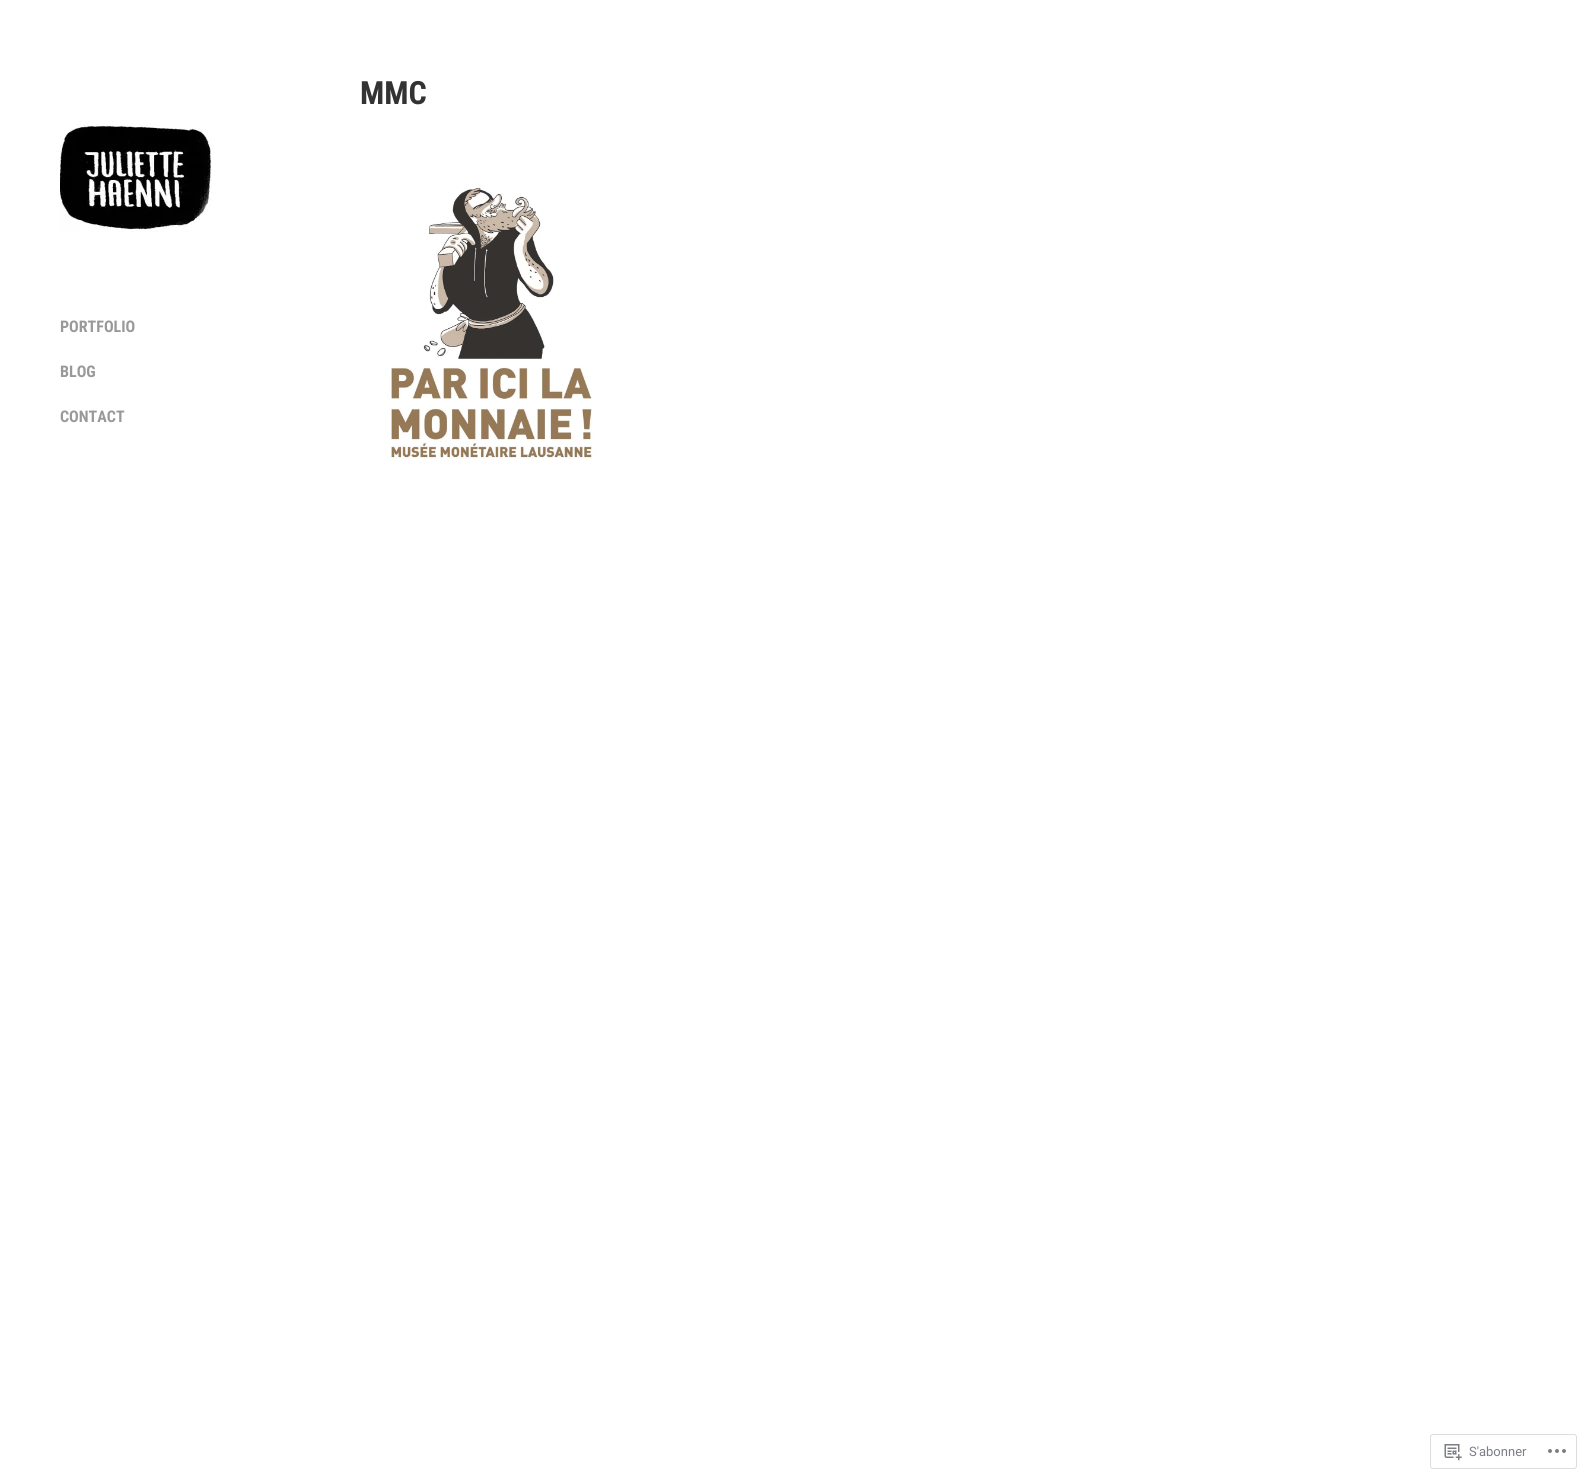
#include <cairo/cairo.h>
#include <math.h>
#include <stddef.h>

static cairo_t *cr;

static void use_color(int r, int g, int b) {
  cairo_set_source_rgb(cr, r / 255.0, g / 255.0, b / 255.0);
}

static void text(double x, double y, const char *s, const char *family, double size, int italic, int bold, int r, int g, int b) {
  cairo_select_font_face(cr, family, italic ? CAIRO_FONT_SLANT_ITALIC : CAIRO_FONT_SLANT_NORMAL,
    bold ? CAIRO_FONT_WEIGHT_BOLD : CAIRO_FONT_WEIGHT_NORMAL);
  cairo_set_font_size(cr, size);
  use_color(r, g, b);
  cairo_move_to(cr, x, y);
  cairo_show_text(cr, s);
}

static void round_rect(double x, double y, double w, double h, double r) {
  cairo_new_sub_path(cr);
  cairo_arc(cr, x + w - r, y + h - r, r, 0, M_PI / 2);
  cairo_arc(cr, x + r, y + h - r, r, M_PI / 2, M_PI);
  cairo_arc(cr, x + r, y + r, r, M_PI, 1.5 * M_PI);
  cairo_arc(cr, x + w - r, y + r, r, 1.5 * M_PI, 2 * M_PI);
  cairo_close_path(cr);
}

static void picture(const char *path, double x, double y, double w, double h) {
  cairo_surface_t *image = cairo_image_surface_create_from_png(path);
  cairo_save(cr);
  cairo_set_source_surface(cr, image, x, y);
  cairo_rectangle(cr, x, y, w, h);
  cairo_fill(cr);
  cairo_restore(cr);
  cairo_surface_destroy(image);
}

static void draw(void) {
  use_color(255, 255, 255);
  cairo_paint(cr);
  picture("img_01.png", 360, 151, 261, 352);
  picture("img_02.png", 60, 124, 152, 108);
  round_rect(1430.5, 1434.5, 146, 34, 2.5);
  use_color(221, 221, 223);
  cairo_set_line_width(cr, 1);
  cairo_stroke(cr);
  picture("img_03.png", 1444, 1444, 18, 17);
  picture("img_04.png", 1548, 1449, 18, 4);
  text(360, 104, "MMC", "Roboto Condensed", 32, 0, 1, 51, 51, 51);
  text(60, 332, "PORTFOLIO", "Roboto Condensed", 16, 0, 1, 153, 153, 153);
  text(60, 377, "BLOG", "Roboto Condensed", 16, 0, 1, 153, 153, 153);
  text(60, 422, "CONTACT", "Roboto Condensed", 16, 0, 1, 153, 153, 153);
  text(1469, 1456, "S'abonner", "Roboto", 13, 0, 0, 123, 127, 133);
}

int main(void) {
  cairo_surface_t *surface = cairo_image_surface_create(CAIRO_FORMAT_RGB24, 1587, 1479);
  cr = cairo_create(surface);
  cairo_font_options_t *options = cairo_font_options_create();
  cairo_font_options_set_hint_metrics(options, CAIRO_HINT_METRICS_OFF);
  cairo_font_options_set_hint_style(options, CAIRO_HINT_STYLE_NONE);
  cairo_set_font_options(cr, options);
  cairo_set_miter_limit(cr, 4);
  draw();
  cairo_surface_write_to_png(surface, "out.png");
  cairo_font_options_destroy(options);
  cairo_destroy(cr);
  cairo_surface_destroy(surface);
  return 0;
}
